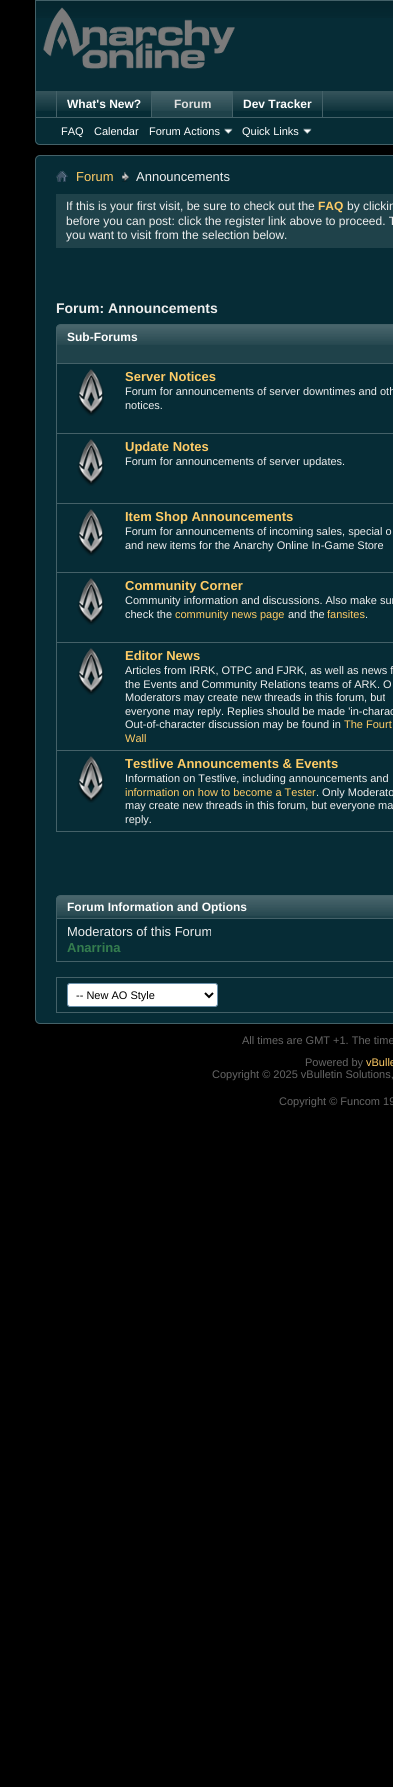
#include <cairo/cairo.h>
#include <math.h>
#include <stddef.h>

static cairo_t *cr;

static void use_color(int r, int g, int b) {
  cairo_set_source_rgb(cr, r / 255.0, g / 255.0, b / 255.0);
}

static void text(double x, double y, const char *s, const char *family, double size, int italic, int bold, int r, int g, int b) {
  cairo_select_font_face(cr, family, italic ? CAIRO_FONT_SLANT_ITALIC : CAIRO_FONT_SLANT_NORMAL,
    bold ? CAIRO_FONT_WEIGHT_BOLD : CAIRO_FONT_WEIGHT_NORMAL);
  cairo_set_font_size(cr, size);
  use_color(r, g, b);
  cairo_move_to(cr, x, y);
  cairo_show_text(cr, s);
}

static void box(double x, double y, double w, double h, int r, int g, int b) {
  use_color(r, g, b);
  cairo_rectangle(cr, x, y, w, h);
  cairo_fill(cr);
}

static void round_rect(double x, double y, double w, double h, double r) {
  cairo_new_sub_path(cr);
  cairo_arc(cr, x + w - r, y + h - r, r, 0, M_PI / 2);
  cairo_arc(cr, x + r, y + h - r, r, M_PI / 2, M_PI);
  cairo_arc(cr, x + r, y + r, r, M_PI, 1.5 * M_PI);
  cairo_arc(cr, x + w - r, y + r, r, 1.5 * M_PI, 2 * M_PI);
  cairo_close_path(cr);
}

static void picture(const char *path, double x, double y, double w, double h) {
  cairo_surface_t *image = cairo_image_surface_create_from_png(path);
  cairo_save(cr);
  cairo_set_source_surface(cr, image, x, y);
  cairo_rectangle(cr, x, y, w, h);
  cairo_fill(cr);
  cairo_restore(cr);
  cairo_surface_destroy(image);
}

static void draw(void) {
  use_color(0, 0, 0);
  cairo_paint(cr);
  use_color(6, 44, 54);
  cairo_new_path(cr);
  cairo_move_to(cr, 35, 0);
  cairo_line_to(cr, 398, 0);
  cairo_line_to(cr, 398, 140);
  cairo_curve_to(cr, 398, 143, 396, 145, 393, 145);
  cairo_line_to(cr, 40, 145);
  cairo_curve_to(cr, 37, 145, 35, 143, 35, 140);
  cairo_close_path(cr);
  cairo_fill(cr);
  picture("img_01.png", 36, 1, 357, 17);
  cairo_new_path(cr);
  cairo_move_to(cr, 35.5, 0.5);
  cairo_line_to(cr, 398.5, 0.5);
  cairo_line_to(cr, 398.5, 140);
  cairo_curve_to(cr, 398.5, 142.5, 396.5, 144.5, 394, 144.5);
  cairo_line_to(cr, 40, 144.5);
  cairo_curve_to(cr, 37.5, 144.5, 35.5, 142.5, 35.5, 140);
  cairo_close_path(cr);
  use_color(68, 97, 104);
  cairo_set_line_width(cr, 1);
  cairo_stroke(cr);
  picture("img_02.png", 43, 7, 192, 62);
  use_color(6, 44, 53);
  cairo_new_path(cr);
  cairo_move_to(cr, 36, 91);
  cairo_line_to(cr, 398, 91);
  cairo_line_to(cr, 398, 139);
  cairo_curve_to(cr, 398, 142, 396, 144, 393, 144);
  cairo_line_to(cr, 41, 144);
  cairo_curve_to(cr, 38, 144, 36, 142, 36, 139);
  cairo_close_path(cr);
  cairo_fill(cr);
  picture("img_03.png", 36, 91, 357, 20);
  box(151, 91, 1, 26, 68, 97, 104);
  box(56, 91, 1, 26, 68, 97, 104);
  box(57, 91, 94, 20, 6, 44, 53);
  picture("img_04.png", 57, 91, 94, 20);
  box(232, 91, 1, 26, 68, 97, 104);
  box(152, 91, 80, 26, 31, 66, 74);
  picture("img_05.png", 152, 91, 80, 20);
  box(322, 91, 1, 26, 68, 97, 104);
  box(233, 91, 89, 20, 6, 44, 53);
  picture("img_06.png", 233, 91, 89, 20);
  box(36, 117, 357, 1, 68, 97, 104);
  picture("img_07.png", 224, 128, 9, 6);
  picture("img_07.png", 303, 128, 9, 6);
  use_color(6, 44, 54);
  round_rect(35.5, 155.5, 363, 868, 4.5);
  cairo_fill_preserve(cr);
  use_color(68, 97, 104);
  cairo_stroke(cr);
  picture("img_08.png", 56, 170, 12, 12);
  picture("img_09.png", 122, 172, 7, 10);
  box(56, 194, 337, 54, 31, 66, 74);
  cairo_new_path(cr);
  cairo_move_to(cr, 61, 324);
  cairo_line_to(cr, 393, 324);
  cairo_curve_to(cr, 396, 324, 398, 326, 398, 329);
  cairo_line_to(cr, 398, 364);
  cairo_line_to(cr, 56, 364);
  cairo_line_to(cr, 56, 329);
  cairo_curve_to(cr, 56, 326, 58, 324, 61, 324);
  cairo_close_path(cr);
  cairo_fill(cr);
  picture("img_10.png", 56, 325, 337, 20);
  cairo_new_path(cr);
  cairo_move_to(cr, 61, 324.5);
  cairo_line_to(cr, 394, 324.5);
  cairo_curve_to(cr, 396.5, 324.5, 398.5, 326.5, 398.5, 329);
  cairo_line_to(cr, 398.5, 363.5);
  cairo_line_to(cr, 56.5, 363.5);
  cairo_line_to(cr, 56.5, 329);
  cairo_curve_to(cr, 56.5, 326.5, 58.5, 324.5, 61, 324.5);
  cairo_close_path(cr);
  use_color(68, 97, 104);
  cairo_stroke(cr);
  box(56, 433, 337, 1, 68, 97, 104);
  box(56, 364, 1, 70, 68, 97, 104);
  picture("img_11.png", 77, 369, 27, 47);
  box(56, 503, 337, 1, 68, 97, 104);
  box(56, 434, 1, 70, 68, 97, 104);
  picture("img_11.png", 77, 439, 27, 47);
  box(56, 572, 337, 1, 68, 97, 104);
  box(56, 504, 1, 69, 68, 97, 104);
  picture("img_11.png", 77, 509, 27, 47);
  box(56, 642, 337, 1, 68, 97, 104);
  box(56, 573, 1, 70, 68, 97, 104);
  picture("img_11.png", 77, 578, 27, 47);
  box(56, 750, 337, 1, 68, 97, 104);
  box(56, 643, 1, 108, 68, 97, 104);
  picture("img_11.png", 77, 648, 27, 47);
  box(56, 831, 337, 1, 68, 97, 104);
  box(56, 751, 1, 81, 68, 97, 104);
  picture("img_11.png", 77, 756, 27, 47);
  use_color(31, 66, 74);
  cairo_new_path(cr);
  cairo_move_to(cr, 61, 895);
  cairo_line_to(cr, 393, 895);
  cairo_curve_to(cr, 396, 895, 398, 897, 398, 900);
  cairo_line_to(cr, 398, 919);
  cairo_line_to(cr, 56, 919);
  cairo_line_to(cr, 56, 900);
  cairo_curve_to(cr, 56, 897, 58, 895, 61, 895);
  cairo_close_path(cr);
  cairo_fill(cr);
  picture("img_10.png", 56, 896, 337, 20);
  cairo_new_path(cr);
  cairo_move_to(cr, 61, 895.5);
  cairo_line_to(cr, 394, 895.5);
  cairo_curve_to(cr, 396.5, 895.5, 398.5, 897.5, 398.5, 900);
  cairo_line_to(cr, 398.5, 918.5);
  cairo_line_to(cr, 56.5, 918.5);
  cairo_line_to(cr, 56.5, 900);
  cairo_curve_to(cr, 56.5, 897.5, 58.5, 895.5, 61, 895.5);
  cairo_close_path(cr);
  use_color(68, 97, 104);
  cairo_stroke(cr);
  box(56, 961, 337, 1, 68, 97, 104);
  box(56, 919, 1, 43, 68, 97, 104);
  cairo_rectangle(cr, 56.5, 977.5, 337, 35);
  cairo_stroke(cr);
  use_color(255, 255, 255);
  round_rect(67.5, 983.5, 150, 23, 2.5);
  cairo_fill_preserve(cr);
  use_color(107, 145, 171);
  cairo_stroke(cr);
  cairo_new_path(cr);
  cairo_move_to(cr, 205, 993);
  cairo_line_to(cr, 209, 997);
  cairo_line_to(cr, 213, 993);
  use_color(0, 0, 0);
  cairo_set_line_width(cr, 2);
  cairo_stroke(cr);
  text(67, 108, "What's New?", "Liberation Sans", 12, 0, 1, 255, 255, 255);
  text(174, 108, "Forum", "Liberation Sans", 12, 0, 1, 223, 223, 223);
  text(243, 108, "Dev Tracker", "Liberation Sans", 12, 0, 1, 255, 255, 255);
  text(61, 135, "FAQ", "Liberation Sans", 11, 0, 0, 255, 255, 255);
  text(94, 135, "Calendar", "Liberation Sans", 11, 0, 0, 255, 255, 255);
  text(149, 135, "Forum Actions", "Liberation Sans", 11, 0, 0, 255, 255, 255);
  text(242, 135, "Quick Links", "Liberation Sans", 11, 0, 0, 255, 255, 255);
  text(76, 181, "Forum", "Liberation Sans", 13, 0, 0, 255, 204, 102);
  text(136, 181, "Announcements", "Liberation Sans", 13, 0, 0, 239, 239, 239);
  text(66, 210, "If this is your first visit, be sure to check out the", "Liberation Sans", 12, 0, 0, 239, 239, 239);
  text(318, 210, "FAQ", "Liberation Sans", 12, 0, 1, 255, 204, 102);
  text(347, 210, "by clickin", "Liberation Sans", 12, 0, 0, 239, 239, 239);
  text(66, 225, "before you can post: click the register link above to proceed. T", "Liberation Sans", 12, 0, 0, 239, 239, 239);
  text(66, 239, "you want to visit from the selection below.", "Liberation Sans", 12, 0, 0, 239, 239, 239);
  text(56, 313, "Forum: Announcements", "Liberation Sans", 14, 0, 1, 239, 239, 239);
  text(67, 341, "Sub-Forums", "Liberation Sans", 12, 0, 1, 255, 255, 255);
  text(125, 381, "Server Notices", "Liberation Sans", 13, 0, 1, 255, 204, 102);
  text(125, 395, "Forum for announcements of server downtimes and oth", "Liberation Sans", 11, 0, 0, 239, 239, 239);
  text(125, 409, "notices.", "Liberation Sans", 11, 0, 0, 239, 239, 239);
  text(125, 451, "Update Notes", "Liberation Sans", 13, 0, 1, 255, 204, 102);
  text(125, 465, "Forum for announcements of server updates.", "Liberation Sans", 11, 0, 0, 239, 239, 239);
  text(125, 521, "Item Shop Announcements", "Liberation Sans", 13, 0, 1, 255, 204, 102);
  text(125, 535, "Forum for announcements of incoming sales, special o", "Liberation Sans", 11, 0, 0, 239, 239, 239);
  text(125, 549, "and new items for the Anarchy Online In-Game Store", "Liberation Sans", 11, 0, 0, 239, 239, 239);
  text(125, 590, "Community Corner", "Liberation Sans", 13, 0, 1, 255, 204, 102);
  text(125, 604, "Community information and discussions. Also make sur", "Liberation Sans", 11, 0, 0, 239, 239, 239);
  text(125, 618, "check the", "Liberation Sans", 11, 0, 0, 239, 239, 239);
  text(175, 618, "community news page", "Liberation Sans", 11, 0, 0, 255, 204, 102);
  text(288, 618, "and the", "Liberation Sans", 11, 0, 0, 239, 239, 239);
  text(327, 618, "fansites", "Liberation Sans", 11, 0, 0, 255, 204, 102);
  text(365, 618, ".", "Liberation Sans", 11, 0, 0, 239, 239, 239);
  text(125, 660, "Editor News", "Liberation Sans", 13, 0, 1, 255, 204, 102);
  text(125, 674, "Articles from IRRK, OTPC and FJRK, as well as news f", "Liberation Sans", 11, 0, 0, 239, 239, 239);
  text(125, 688, "the Events and Community Relations teams of ARK. O", "Liberation Sans", 11, 0, 0, 239, 239, 239);
  text(125, 701, "Moderators may create new threads in this forum, but", "Liberation Sans", 11, 0, 0, 239, 239, 239);
  text(125, 715, "everyone may reply. Replies should be made 'in-charac", "Liberation Sans", 11, 0, 0, 239, 239, 239);
  text(125, 728, "Out-of-character discussion may be found in", "Liberation Sans", 11, 0, 0, 239, 239, 239);
  text(344, 728, "The Fourt", "Liberation Sans", 11, 0, 0, 255, 204, 102);
  text(125, 742, "Wall", "Liberation Sans", 11, 0, 0, 255, 204, 102);
  text(125, 768, "Testlive Announcements & Events", "Liberation Sans", 13, 0, 1, 255, 204, 102);
  text(125, 782, "Information on Testlive, including announcements and", "Liberation Sans", 11, 0, 0, 239, 239, 239);
  text(125, 796, "information on how to become a Tester", "Liberation Sans", 11, 0, 0, 255, 204, 102);
  text(316, 796, ". Only Moderato", "Liberation Sans", 11, 0, 0, 239, 239, 239);
  text(125, 809, "may create new threads in this forum, but everyone ma", "Liberation Sans", 11, 0, 0, 239, 239, 239);
  text(125, 823, "reply.", "Liberation Sans", 11, 0, 0, 239, 239, 239);
  text(67, 911, "Forum Information and Options", "Liberation Sans", 12, 0, 1, 255, 255, 255);
  text(67, 936, "Moderators of this Forum", "Liberation Sans", 13, 0, 0, 239, 239, 239);
  text(67, 952, "Anarrina", "Liberation Sans", 13, 0, 1, 52, 125, 78);
  text(76, 999, "-- New AO Style", "Liberation Sans", 11, 0, 0, 0, 0, 0);
  text(242, 1044, "All times are GMT +1. The time", "Liberation Sans", 11, 0, 0, 102, 102, 102);
  text(305, 1066, "Powered by", "Liberation Sans", 11, 0, 0, 102, 102, 102);
  text(366, 1066, "vBulle", "Liberation Sans", 11, 0, 0, 255, 204, 102);
  text(212, 1078, "Copyright © 2025 vBulletin Solutions,", "Liberation Sans", 11, 0, 0, 102, 102, 102);
  text(279, 1105, "Copyright © Funcom 19", "Liberation Sans", 11, 0, 0, 102, 102, 102);
}

int main(void) {
  cairo_surface_t *surface = cairo_image_surface_create(CAIRO_FORMAT_RGB24, 393, 1787);
  cr = cairo_create(surface);
  cairo_font_options_t *options = cairo_font_options_create();
  cairo_font_options_set_hint_metrics(options, CAIRO_HINT_METRICS_OFF);
  cairo_font_options_set_hint_style(options, CAIRO_HINT_STYLE_NONE);
  cairo_set_font_options(cr, options);
  cairo_set_miter_limit(cr, 4);
  draw();
  cairo_surface_write_to_png(surface, "out.png");
  cairo_font_options_destroy(options);
  cairo_destroy(cr);
  cairo_surface_destroy(surface);
  return 0;
}
